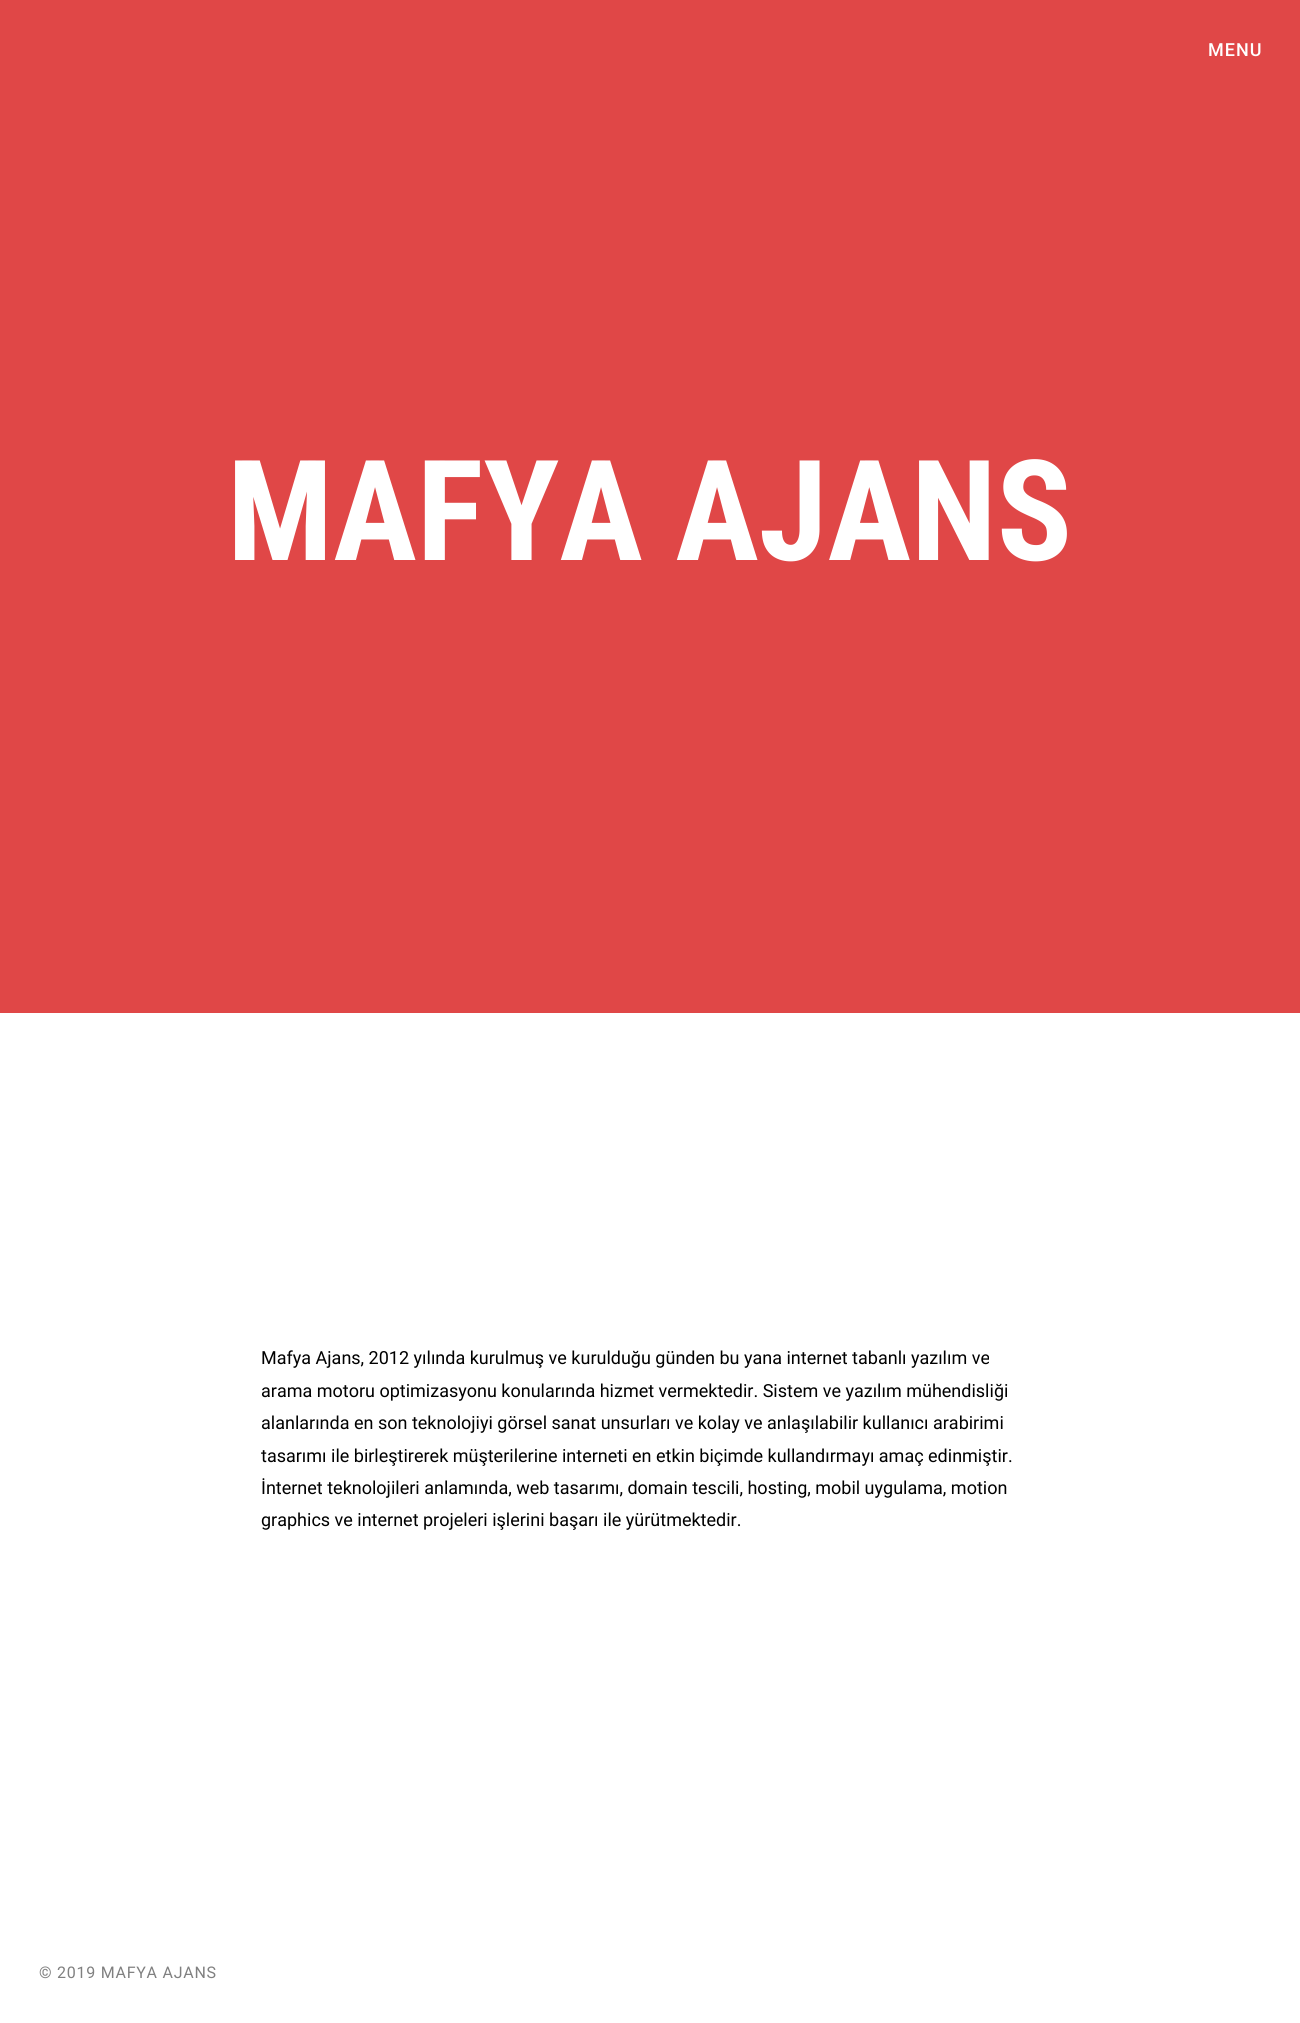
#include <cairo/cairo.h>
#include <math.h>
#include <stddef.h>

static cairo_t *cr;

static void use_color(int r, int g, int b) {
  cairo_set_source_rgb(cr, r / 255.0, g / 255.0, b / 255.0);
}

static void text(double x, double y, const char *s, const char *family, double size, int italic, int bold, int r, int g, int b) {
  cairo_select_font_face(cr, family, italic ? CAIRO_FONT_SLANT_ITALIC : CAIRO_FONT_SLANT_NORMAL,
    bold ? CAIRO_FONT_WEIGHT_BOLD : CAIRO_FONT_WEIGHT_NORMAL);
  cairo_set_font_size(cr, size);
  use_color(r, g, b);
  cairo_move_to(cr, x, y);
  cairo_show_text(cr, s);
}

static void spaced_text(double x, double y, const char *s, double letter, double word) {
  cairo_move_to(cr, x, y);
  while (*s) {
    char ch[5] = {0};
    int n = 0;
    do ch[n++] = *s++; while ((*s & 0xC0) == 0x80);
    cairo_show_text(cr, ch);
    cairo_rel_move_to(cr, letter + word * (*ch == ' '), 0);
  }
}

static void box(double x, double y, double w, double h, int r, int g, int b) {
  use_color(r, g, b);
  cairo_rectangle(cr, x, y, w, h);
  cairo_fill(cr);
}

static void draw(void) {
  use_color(255, 255, 255);
  cairo_paint(cr);
  box(0, 0, 1300, 1013, 224, 71, 71);
  cairo_select_font_face(cr, "Roboto Medium", CAIRO_FONT_SLANT_NORMAL, CAIRO_FONT_WEIGHT_NORMAL);
  cairo_set_font_size(cr, 18);
  use_color(255, 255, 255);
  spaced_text(1208, 56, "MENU", 1, 0);
  text(227, 560, "MAFYA AJANS", "Roboto Condensed", 140, 0, 1, 255, 255, 255);
  text(261, 1364, "Mafya Ajans, 2012 yılında kurulmuş ve kurulduğu günden bu yana internet tabanlı yazılım ve", "Roboto", 18, 0, 0, 0, 0, 0);
  text(261, 1397, "arama motoru optimizasyonu konularında hizmet vermektedir. Sistem ve yazılım mühendisliği", "Roboto", 18, 0, 0, 0, 0, 0);
  text(261, 1429, "alanlarında en son teknolojiyi görsel sanat unsurları ve kolay ve anlaşılabilir kullanıcı arabirimi", "Roboto", 18, 0, 0, 0, 0, 0);
  text(261, 1462, "tasarımı ile birleştirerek müşterilerine interneti en etkin biçimde kullandırmayı amaç edinmiştir.", "Roboto", 18, 0, 0, 0, 0, 0);
  text(261, 1494, "İnternet teknolojileri anlamında, web tasarımı, domain tescili, hosting, mobil uygulama, motion", "Roboto", 18, 0, 0, 0, 0, 0);
  text(261, 1526, "graphics ve internet projeleri işlerini başarı ile yürütmektedir.", "Roboto", 18, 0, 0, 0, 0, 0);
  cairo_set_font_size(cr, 16);
  use_color(128, 128, 128);
  spaced_text(39, 1978, "© 2019 MAFYA AJANS", 0.75, 0);
}

int main(void) {
  cairo_surface_t *surface = cairo_image_surface_create(CAIRO_FORMAT_RGB24, 1300, 2023);
  cr = cairo_create(surface);
  cairo_font_options_t *options = cairo_font_options_create();
  cairo_font_options_set_hint_metrics(options, CAIRO_HINT_METRICS_OFF);
  cairo_font_options_set_hint_style(options, CAIRO_HINT_STYLE_NONE);
  cairo_set_font_options(cr, options);
  cairo_set_miter_limit(cr, 4);
  draw();
  cairo_surface_write_to_png(surface, "out.png");
  cairo_font_options_destroy(options);
  cairo_destroy(cr);
  cairo_surface_destroy(surface);
  return 0;
}
